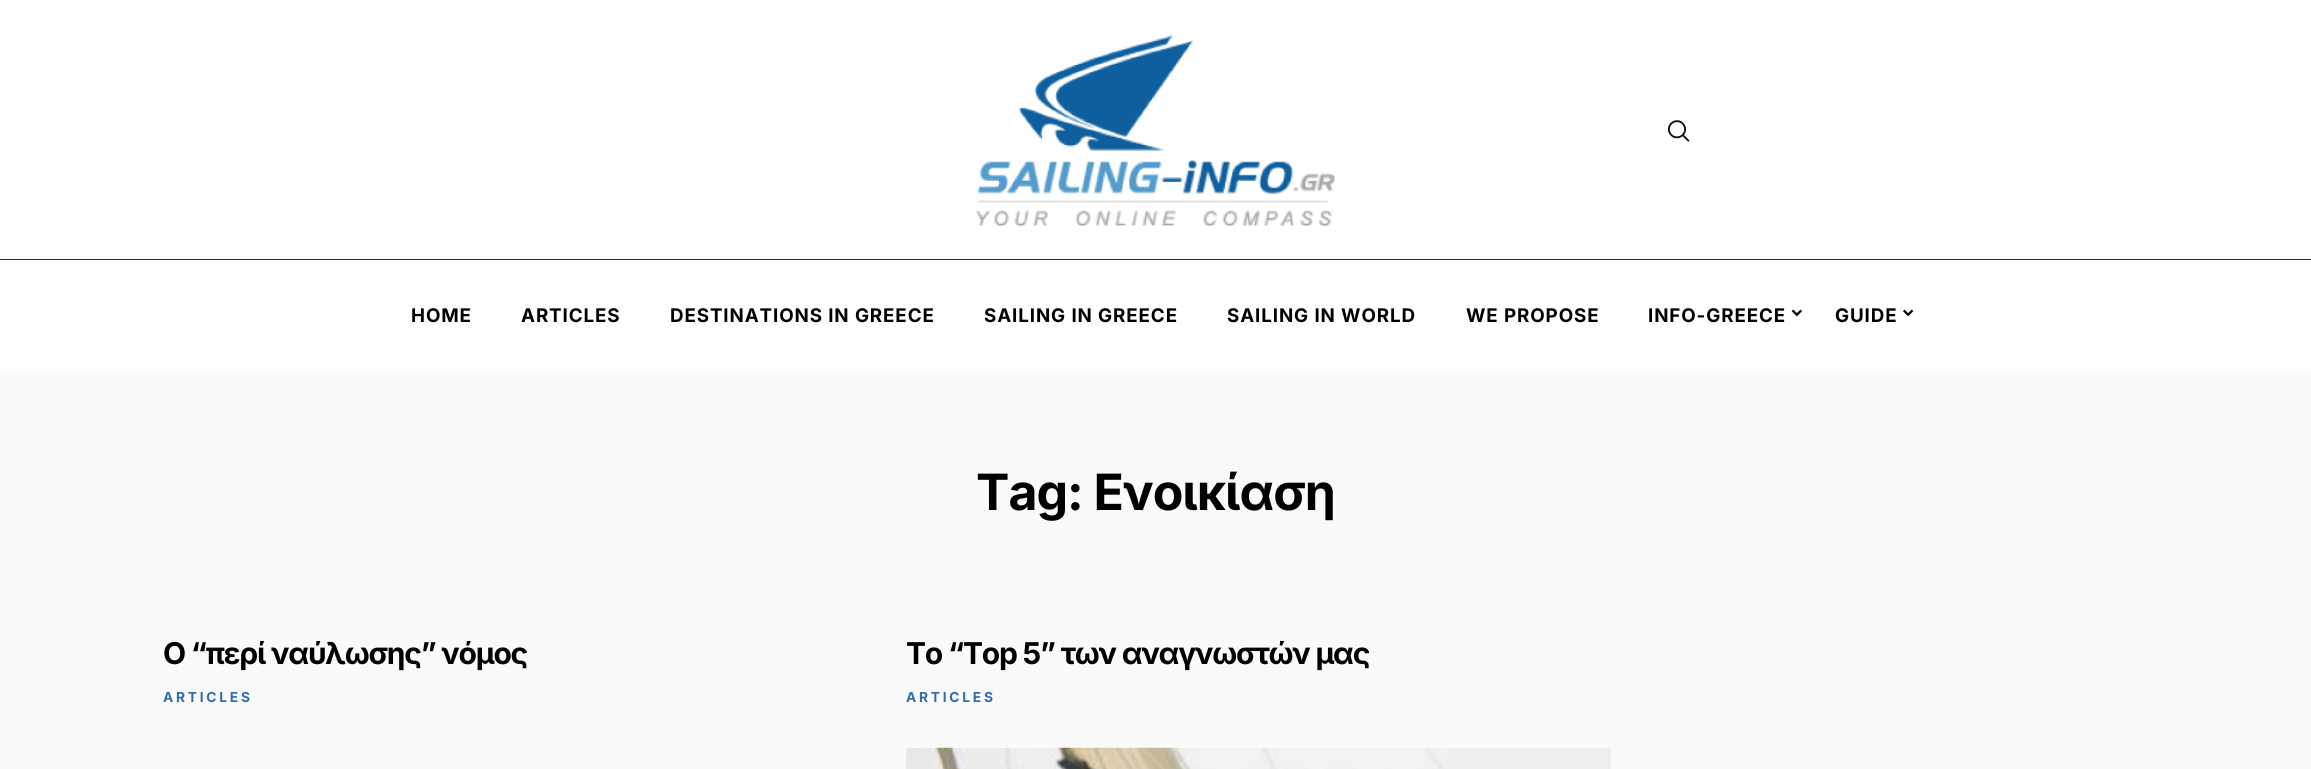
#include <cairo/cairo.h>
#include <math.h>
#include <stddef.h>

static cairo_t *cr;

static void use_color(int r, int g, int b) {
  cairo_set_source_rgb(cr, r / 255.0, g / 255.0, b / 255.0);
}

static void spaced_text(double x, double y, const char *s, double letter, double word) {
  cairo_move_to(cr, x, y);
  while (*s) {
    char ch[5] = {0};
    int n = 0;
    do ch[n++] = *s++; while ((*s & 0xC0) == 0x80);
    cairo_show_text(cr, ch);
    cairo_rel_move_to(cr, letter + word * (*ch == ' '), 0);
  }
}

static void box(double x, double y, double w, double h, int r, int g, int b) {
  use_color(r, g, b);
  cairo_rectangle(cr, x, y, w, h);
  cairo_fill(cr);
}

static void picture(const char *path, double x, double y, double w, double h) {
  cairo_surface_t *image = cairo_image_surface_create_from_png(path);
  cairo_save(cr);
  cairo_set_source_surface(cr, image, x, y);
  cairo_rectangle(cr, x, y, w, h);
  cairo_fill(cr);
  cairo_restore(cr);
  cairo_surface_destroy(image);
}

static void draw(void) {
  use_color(250, 250, 250);
  cairo_paint(cr);
  box(0, 0, 2311, 259, 255, 255, 255);
  box(0, 259, 2311, 1, 46, 44, 51);
  picture("img_01.png", 976, 35, 359, 192);
  picture("img_02.png", 1668, 120, 22, 22);
  box(0, 260, 2311, 111, 255, 255, 255);
  picture("img_03.png", 1791, 309, 11, 8);
  picture("img_04.png", 1903, 309, 11, 8);
  picture("img_05.png", 906, 747, 541, 22);
  cairo_set_source_rgba(cr, 0, 0, 0, 0.05);
  cairo_rectangle(cr, 906, 748, 705, 21);
  cairo_fill(cr);
  cairo_select_font_face(cr, "Inter", CAIRO_FONT_SLANT_NORMAL, CAIRO_FONT_WEIGHT_BOLD);
  cairo_set_font_size(cr, 18.75);
  use_color(0, 0, 0);
  spaced_text(411, 322, "HOME", 0.9, 0);
  spaced_text(521, 322, "ARTICLES", 0.9, 0);
  spaced_text(670, 322, "DESTINATIONS IN GREECE", 0.9, 0);
  spaced_text(984, 322, "SAILING IN GREECE", 0.9, 0);
  spaced_text(1227, 322, "SAILING IN WORLD", 0.9, 0);
  spaced_text(1466, 322, "WE PROPOSE", 0.9, 0);
  spaced_text(1648, 322, "INFO-GREECE", 0.9, 0);
  spaced_text(1835, 322, "GUIDE", 0.9, 0);
  cairo_set_font_size(cr, 50);
  spaced_text(976, 510, "Tag: Ενοικίαση", -1, 0);
  cairo_set_font_size(cr, 30);
  spaced_text(163, 664, "Ο “περί ναύλωσης” νόμος", -1.2, 0);
  cairo_set_font_size(cr, 13.75);
  use_color(48, 108, 176);
  spaced_text(163, 702, "ARTICLES", 2.75, 0);
  cairo_set_font_size(cr, 30);
  use_color(0, 0, 0);
  spaced_text(906, 664, "Το “Top 5” των αναγνωστών μας", -1.2, 0);
  cairo_set_font_size(cr, 13.75);
  use_color(48, 108, 176);
  spaced_text(906, 702, "ARTICLES", 2.75, 0);
}

int main(void) {
  cairo_surface_t *surface = cairo_image_surface_create(CAIRO_FORMAT_RGB24, 2311, 769);
  cr = cairo_create(surface);
  cairo_font_options_t *options = cairo_font_options_create();
  cairo_font_options_set_hint_metrics(options, CAIRO_HINT_METRICS_OFF);
  cairo_font_options_set_hint_style(options, CAIRO_HINT_STYLE_NONE);
  cairo_set_font_options(cr, options);
  cairo_set_miter_limit(cr, 4);
  draw();
  cairo_surface_write_to_png(surface, "out.png");
  cairo_font_options_destroy(options);
  cairo_destroy(cr);
  cairo_surface_destroy(surface);
  return 0;
}
